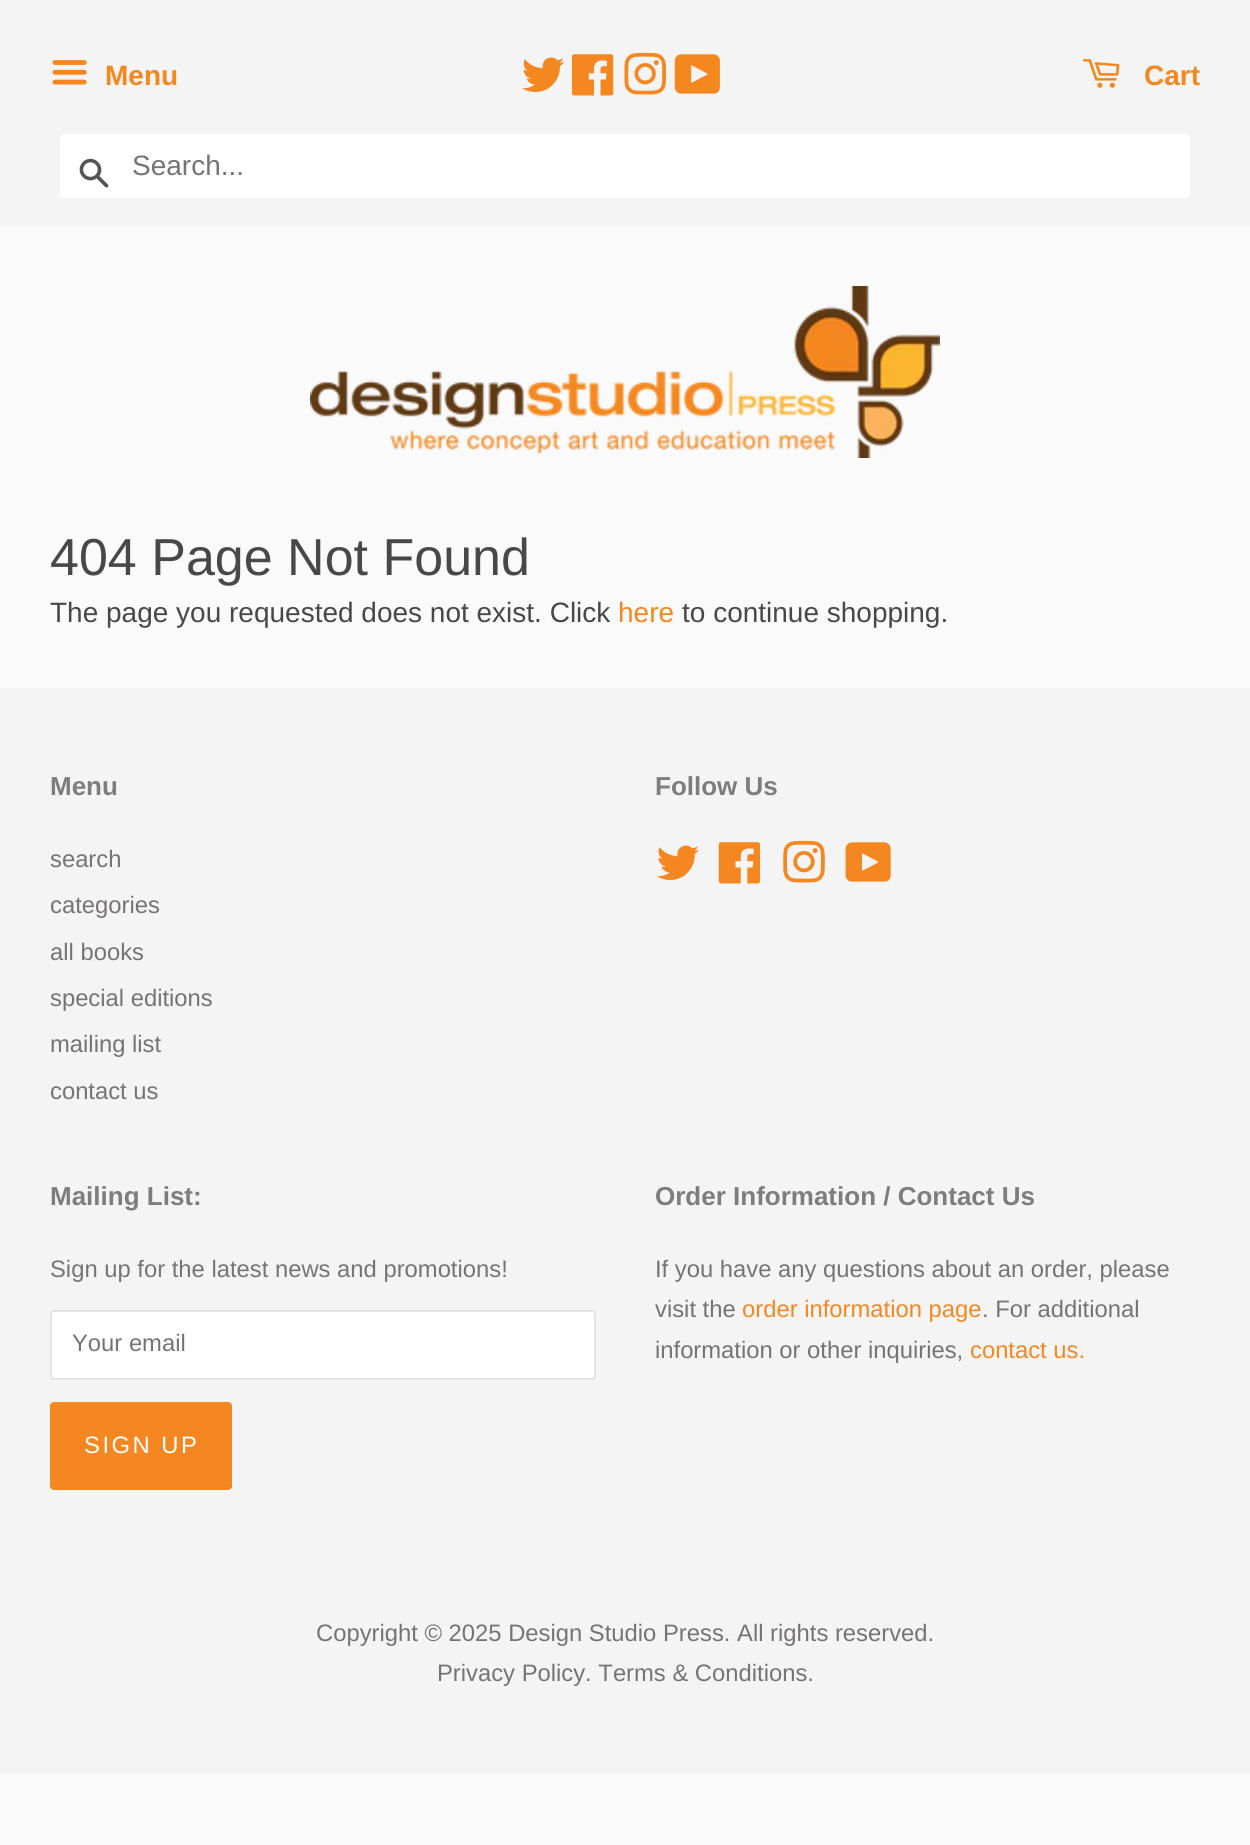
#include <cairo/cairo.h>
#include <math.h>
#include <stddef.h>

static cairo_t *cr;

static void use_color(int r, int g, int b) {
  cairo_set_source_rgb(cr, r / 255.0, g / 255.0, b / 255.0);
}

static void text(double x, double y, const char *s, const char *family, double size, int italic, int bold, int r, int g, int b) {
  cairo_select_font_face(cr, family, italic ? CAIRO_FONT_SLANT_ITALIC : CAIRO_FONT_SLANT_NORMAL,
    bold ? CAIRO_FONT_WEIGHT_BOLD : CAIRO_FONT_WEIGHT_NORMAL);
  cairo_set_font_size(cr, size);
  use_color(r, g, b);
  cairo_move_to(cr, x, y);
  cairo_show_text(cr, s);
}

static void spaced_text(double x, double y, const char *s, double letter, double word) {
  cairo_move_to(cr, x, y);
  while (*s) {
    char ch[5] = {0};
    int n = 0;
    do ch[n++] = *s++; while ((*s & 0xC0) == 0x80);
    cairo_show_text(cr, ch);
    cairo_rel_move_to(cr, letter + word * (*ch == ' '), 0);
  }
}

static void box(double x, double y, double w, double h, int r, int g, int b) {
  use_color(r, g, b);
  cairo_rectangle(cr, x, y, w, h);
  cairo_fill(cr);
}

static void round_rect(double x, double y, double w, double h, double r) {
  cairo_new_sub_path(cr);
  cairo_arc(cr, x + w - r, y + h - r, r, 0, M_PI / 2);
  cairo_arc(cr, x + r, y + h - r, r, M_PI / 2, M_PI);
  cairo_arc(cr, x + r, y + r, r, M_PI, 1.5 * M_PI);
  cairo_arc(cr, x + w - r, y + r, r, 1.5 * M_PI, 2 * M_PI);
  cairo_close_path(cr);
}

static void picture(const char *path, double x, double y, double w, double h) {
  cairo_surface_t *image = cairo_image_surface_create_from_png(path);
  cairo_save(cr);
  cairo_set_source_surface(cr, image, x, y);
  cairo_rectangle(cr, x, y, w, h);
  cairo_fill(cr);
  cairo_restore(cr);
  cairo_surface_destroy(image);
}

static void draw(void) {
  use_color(250, 250, 250);
  cairo_paint(cr);
  box(0, 0, 1250, 226, 244, 244, 244);
  picture("img_01.png", 52, 60, 35, 25);
  picture("img_02.png", 522, 57, 42, 35);
  picture("img_03.png", 572, 54, 42, 42);
  picture("img_04.png", 624, 52, 42, 43);
  picture("img_05.png", 674, 54, 46, 40);
  picture("img_06.png", 1082, 59, 38, 29);
  use_color(255, 255, 255);
  round_rect(60, 134, 1130, 64, 4);
  cairo_fill(cr);
  picture("img_07.png", 79, 158, 30, 30);
  picture("img_08.png", 310, 286, 630, 172);
  box(0, 688, 1250, 1086, 244, 244, 244);
  picture("img_09.png", 656, 845, 43, 35);
  picture("img_10.png", 718, 842, 43, 42);
  picture("img_11.png", 783, 840, 42, 43);
  picture("img_12.png", 845, 842, 46, 40);
  use_color(255, 255, 255);
  round_rect(50, 1310, 546, 70, 4);
  cairo_fill(cr);
  round_rect(51, 1311, 544, 68, 3);
  cairo_set_source_rgba(cr, 0.282, 0.282, 0.282, 0.15);
  cairo_stroke(cr);
  use_color(245, 135, 32);
  round_rect(50, 1402, 182, 88, 4);
  cairo_fill(cr);
  text(105, 85, "Menu", "Liberation Sans", 28, 0, 1, 245, 135, 32);
  text(1144, 85, "Cart", "Liberation Sans", 28, 0, 1, 245, 135, 32);
  text(132, 175, "Search...", "Liberation Sans", 28, 0, 0, 118, 116, 115);
  text(50, 575, "404 Page Not Found", "Liberation Sans", 52, 0, 0, 72, 72, 72);
  text(50, 622, "The page you requested does not exist. Click", "Liberation Sans", 28, 0, 0, 72, 72, 72);
  text(618, 622, "here", "Liberation Sans", 28, 0, 0, 245, 135, 32);
  text(682, 622, "to continue shopping.", "Liberation Sans", 28, 0, 0, 72, 72, 72);
  text(50, 795, "Menu", "Liberation Sans", 26, 0, 1, 125, 125, 125);
  text(50, 867, "search", "Liberation Sans", 23.8, 0, 0, 118, 116, 115);
  text(50, 913, "categories", "Liberation Sans", 23.8, 0, 0, 118, 116, 115);
  text(50, 960, "all books", "Liberation Sans", 23.8, 0, 0, 118, 116, 115);
  text(50, 1006, "special editions", "Liberation Sans", 23.8, 0, 0, 118, 116, 115);
  text(50, 1052, "mailing list", "Liberation Sans", 23.8, 0, 0, 118, 116, 115);
  text(50, 1099, "contact us", "Liberation Sans", 23.8, 0, 0, 118, 116, 115);
  text(655, 795, "Follow Us", "Liberation Sans", 26, 0, 1, 125, 125, 125);
  text(50, 1205, "Mailing List:", "Liberation Sans", 26, 0, 1, 125, 125, 125);
  text(50, 1277, "Sign up for the latest news and promotions!", "Liberation Sans", 23.8, 0, 0, 118, 116, 115);
  text(72, 1351, "Your email", "Liberation Sans", 23.8, 0, 0, 118, 116, 115);
  use_color(255, 255, 255);
  spaced_text(84, 1453, "SIGN UP", 2.5, 0);
  text(655, 1205, "Order Information / Contact Us", "Liberation Sans", 26, 0, 1, 125, 125, 125);
  text(655, 1277, "If you have any questions about an order, please", "Liberation Sans", 23.8, 0, 0, 118, 116, 115);
  text(655, 1317, "visit the", "Liberation Sans", 23.8, 0, 0, 118, 116, 115);
  text(742, 1317, "order information page", "Liberation Sans", 23.8, 0, 0, 245, 135, 32);
  text(982, 1317, ". For additional", "Liberation Sans", 23.8, 0, 0, 118, 116, 115);
  text(655, 1358, "information or other inquiries,", "Liberation Sans", 23.8, 0, 0, 118, 116, 115);
  text(970, 1358, "contact us.", "Liberation Sans", 23.8, 0, 0, 245, 135, 32);
  text(316, 1641, "Copyright © 2025 Design Studio Press. All rights reserved.", "Liberation Sans", 23.8, 0, 0, 118, 116, 115);
  text(437, 1681, "Privacy Policy. Terms & Conditions.", "Liberation Sans", 23.8, 0, 0, 118, 116, 115);
}

int main(void) {
  cairo_surface_t *surface = cairo_image_surface_create(CAIRO_FORMAT_RGB24, 1250, 1845);
  cr = cairo_create(surface);
  cairo_font_options_t *options = cairo_font_options_create();
  cairo_font_options_set_hint_metrics(options, CAIRO_HINT_METRICS_OFF);
  cairo_font_options_set_hint_style(options, CAIRO_HINT_STYLE_NONE);
  cairo_set_font_options(cr, options);
  cairo_set_miter_limit(cr, 4);
  draw();
  cairo_surface_write_to_png(surface, "out.png");
  cairo_font_options_destroy(options);
  cairo_destroy(cr);
  cairo_surface_destroy(surface);
  return 0;
}
